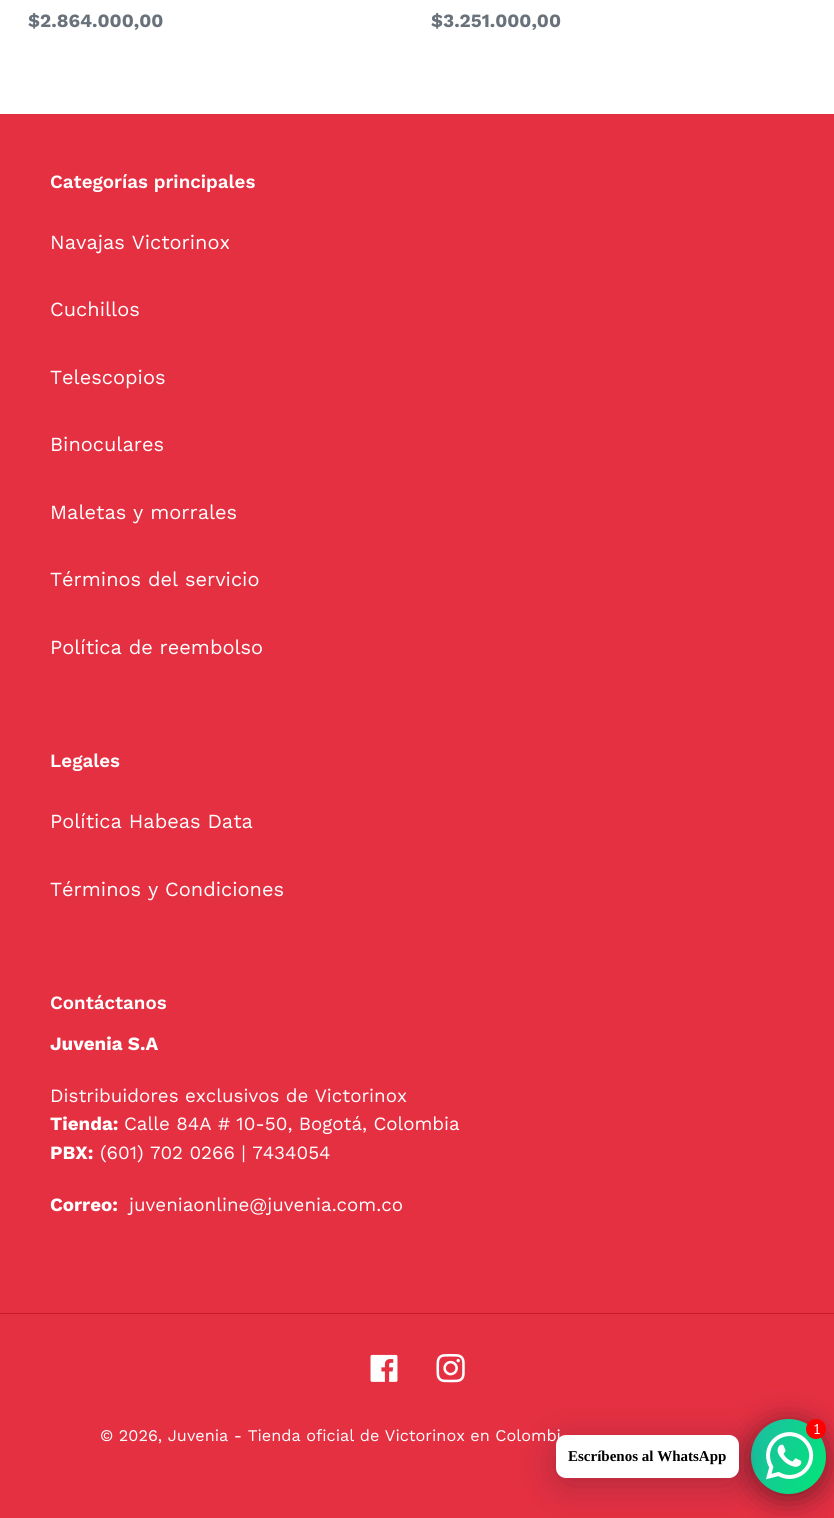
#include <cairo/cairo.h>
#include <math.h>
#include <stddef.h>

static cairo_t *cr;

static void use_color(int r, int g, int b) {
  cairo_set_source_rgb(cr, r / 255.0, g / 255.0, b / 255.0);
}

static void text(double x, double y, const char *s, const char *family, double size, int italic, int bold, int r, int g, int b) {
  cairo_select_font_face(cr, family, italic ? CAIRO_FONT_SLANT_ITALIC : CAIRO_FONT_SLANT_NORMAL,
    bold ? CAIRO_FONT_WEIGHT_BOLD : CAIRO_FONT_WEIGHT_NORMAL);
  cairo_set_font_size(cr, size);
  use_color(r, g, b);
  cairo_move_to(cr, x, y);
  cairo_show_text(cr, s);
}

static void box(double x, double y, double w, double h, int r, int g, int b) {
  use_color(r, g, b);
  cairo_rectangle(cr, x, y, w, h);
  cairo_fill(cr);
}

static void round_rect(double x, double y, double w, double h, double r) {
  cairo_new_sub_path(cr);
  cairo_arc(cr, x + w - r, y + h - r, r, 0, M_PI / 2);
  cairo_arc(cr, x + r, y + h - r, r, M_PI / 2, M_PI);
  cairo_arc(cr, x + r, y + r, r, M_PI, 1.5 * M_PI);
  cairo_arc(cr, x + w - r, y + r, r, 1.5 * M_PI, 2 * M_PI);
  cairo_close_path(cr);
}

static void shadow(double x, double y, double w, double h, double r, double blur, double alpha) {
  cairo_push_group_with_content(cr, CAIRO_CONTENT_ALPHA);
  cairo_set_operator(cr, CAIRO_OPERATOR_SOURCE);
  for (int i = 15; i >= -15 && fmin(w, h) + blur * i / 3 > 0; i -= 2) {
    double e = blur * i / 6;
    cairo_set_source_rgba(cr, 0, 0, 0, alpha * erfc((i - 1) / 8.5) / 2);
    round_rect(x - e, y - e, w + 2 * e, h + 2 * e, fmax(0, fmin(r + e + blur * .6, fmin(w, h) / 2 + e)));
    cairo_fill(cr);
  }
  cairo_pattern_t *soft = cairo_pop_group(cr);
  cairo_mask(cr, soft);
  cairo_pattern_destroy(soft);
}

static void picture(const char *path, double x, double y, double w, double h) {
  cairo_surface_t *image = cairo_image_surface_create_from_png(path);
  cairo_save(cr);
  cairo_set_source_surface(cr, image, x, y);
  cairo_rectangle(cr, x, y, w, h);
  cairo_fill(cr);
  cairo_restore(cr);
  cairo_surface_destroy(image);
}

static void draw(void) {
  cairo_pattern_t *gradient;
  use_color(255, 255, 255);
  cairo_paint(cr);
  box(0, 114, 834, 1404, 229, 48, 66);
  box(0, 1313, 834, 1, 201, 25, 43);
  picture("img_01.png", 370, 1354, 28, 28);
  picture("img_02.png", 436, 1354, 29, 29);
  use_color(2, 6, 16);
  shadow(751, 1424, 75, 75, 37.5, 15, 0.5);
  gradient = cairo_pattern_create_linear(744, 1435, 834, 1477);
  cairo_pattern_add_color_stop_rgba(gradient, 0, 0.118, 0.745, 0.647, 1);
  cairo_pattern_add_color_stop_rgba(gradient, 1, 0.004, 0.902, 0.467, 1);
  cairo_set_source(cr, gradient);
  cairo_pattern_destroy(gradient);
  cairo_arc(cr, 788.5, 1456.5, 37.5, 0, 2 * M_PI);
  cairo_fill(cr);
  use_color(0, 18, 46);
  shadow(556, 1443, 183, 42, 10, 20, 0.24);
  picture("img_03.png", 765, 1432, 49, 48);
  use_color(255, 0, 0);
  cairo_arc(cr, 816, 1429, 10, 0, 2 * M_PI);
  cairo_fill(cr);
  use_color(255, 255, 255);
  round_rect(556, 1435, 183, 43, 10);
  cairo_fill(cr);
  text(28, 27, "$2.864.000,00", "Work Sans", 18.75, 0, 1, 105, 114, 123);
  text(431, 27, "$3.251.000,00", "Work Sans", 18.75, 0, 1, 105, 114, 123);
  text(50, 188, "Categorías principales", "Work Sans SemiBold", 18.75, 0, 0, 255, 255, 255);
  text(50, 249, "Navajas Victorinox", "Work Sans", 20, 0, 0, 255, 255, 255);
  text(50, 316, "Cuchillos", "Work Sans", 20, 0, 0, 255, 255, 255);
  text(50, 384, "Telescopios", "Work Sans", 20, 0, 0, 255, 255, 255);
  text(50, 451, "Binoculares", "Work Sans", 20, 0, 0, 255, 255, 255);
  text(50, 519, "Maletas y morrales", "Work Sans", 20, 0, 0, 255, 255, 255);
  text(50, 586, "Términos del servicio", "Work Sans", 20, 0, 0, 255, 255, 255);
  text(50, 654, "Política de reembolso", "Work Sans", 20, 0, 0, 255, 255, 255);
  text(50, 767, "Legales", "Work Sans SemiBold", 18.75, 0, 0, 255, 255, 255);
  text(50, 828, "Política Habeas Data", "Work Sans", 20, 0, 0, 255, 255, 255);
  text(50, 896, "Términos y Condiciones", "Work Sans", 20, 0, 0, 255, 255, 255);
  text(50, 1009, "Contáctanos", "Work Sans SemiBold", 18.75, 0, 0, 255, 255, 255);
  text(50, 1050, "Juvenia S.A", "Work Sans", 18.75, 0, 1, 255, 255, 255);
  text(50, 1102, "Distribuidores exclusivos de Victorinox", "Work Sans", 18.75, 0, 0, 255, 255, 255);
  text(50, 1130, "Tienda:", "Work Sans", 18.75, 0, 1, 255, 255, 255);
  text(124, 1130, "Calle 84A # 10-50, Bogotá, Colombia", "Work Sans", 18.75, 0, 0, 255, 255, 255);
  text(50, 1159, "PBX:", "Work Sans", 18.75, 0, 1, 255, 255, 255);
  text(100, 1159, "(601) 702 0266 | 7434054", "Work Sans", 18.75, 0, 0, 255, 255, 255);
  text(50, 1211, "Correo:", "Work Sans", 18.75, 0, 1, 255, 255, 255);
  text(129, 1211, "juveniaonline@juvenia.com.co", "Work Sans", 18.75, 0, 0, 255, 255, 255);
  text(100, 1441, "© 2026, Juvenia - Tienda oficial de Victorinox en Colombi", "Work Sans", 16.25, 0, 0, 255, 255, 255);
  text(814, 1434, "1", "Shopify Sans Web", 14, 0, 0, 255, 255, 255);
  text(568, 1461, "Escríbenos al WhatsApp", "Liberation Serif", 15, 0, 1, 0, 0, 0);
}

int main(void) {
  cairo_surface_t *surface = cairo_image_surface_create(CAIRO_FORMAT_RGB24, 834, 1518);
  cr = cairo_create(surface);
  cairo_font_options_t *options = cairo_font_options_create();
  cairo_font_options_set_hint_metrics(options, CAIRO_HINT_METRICS_OFF);
  cairo_font_options_set_hint_style(options, CAIRO_HINT_STYLE_NONE);
  cairo_set_font_options(cr, options);
  cairo_set_miter_limit(cr, 4);
  draw();
  cairo_surface_write_to_png(surface, "out.png");
  cairo_font_options_destroy(options);
  cairo_destroy(cr);
  cairo_surface_destroy(surface);
  return 0;
}
